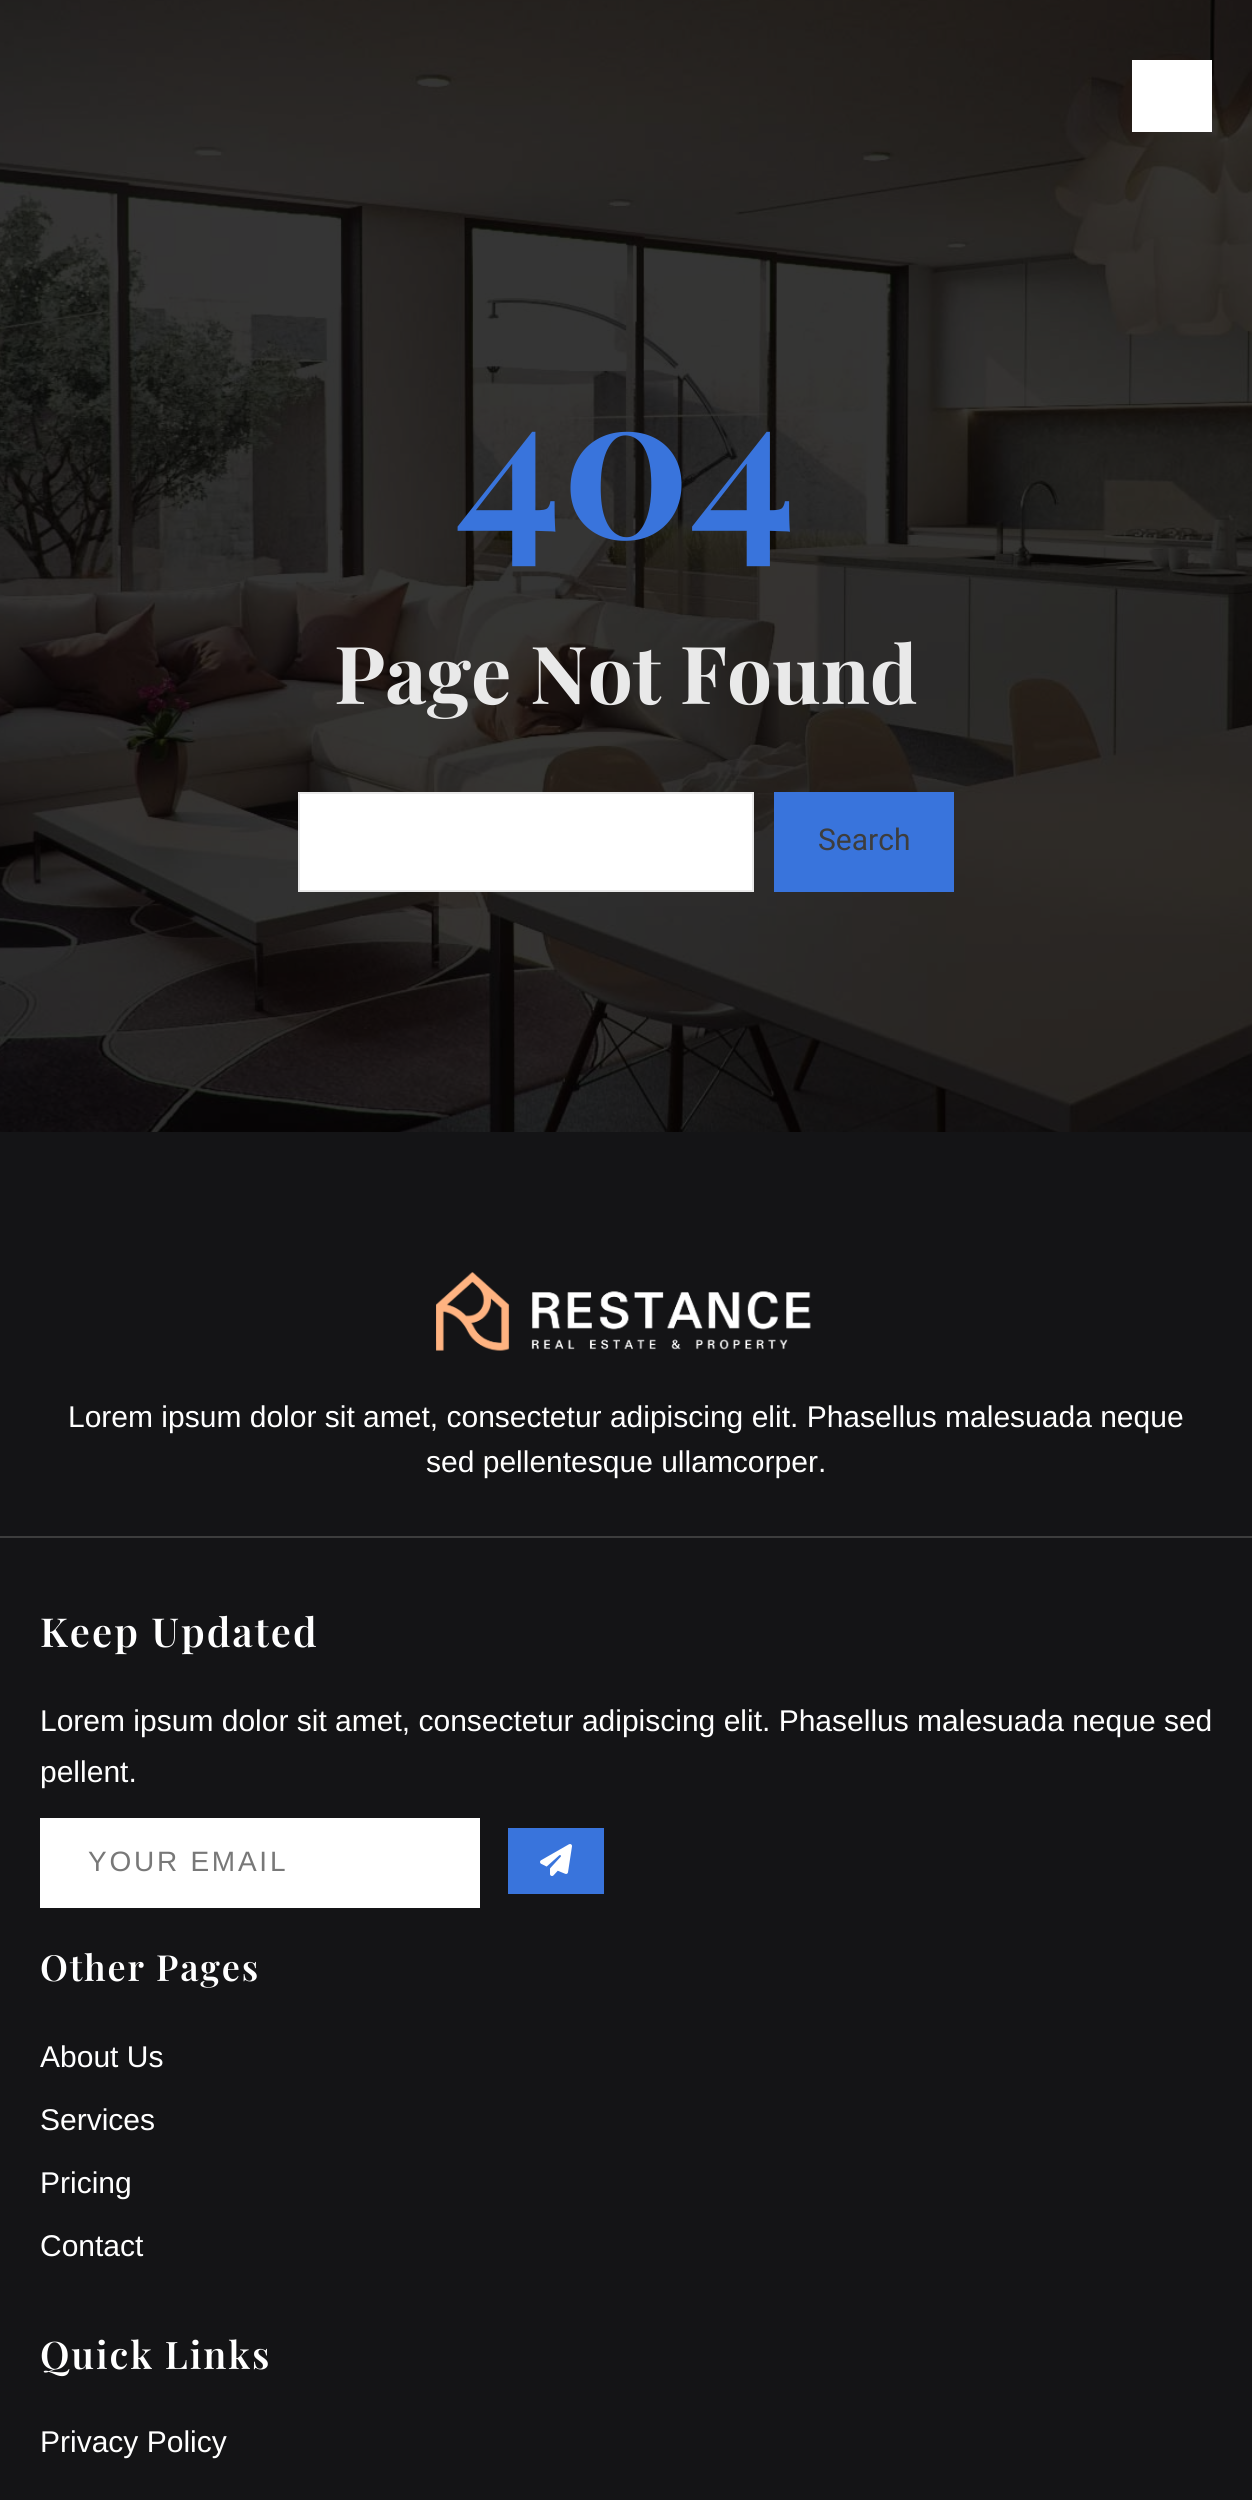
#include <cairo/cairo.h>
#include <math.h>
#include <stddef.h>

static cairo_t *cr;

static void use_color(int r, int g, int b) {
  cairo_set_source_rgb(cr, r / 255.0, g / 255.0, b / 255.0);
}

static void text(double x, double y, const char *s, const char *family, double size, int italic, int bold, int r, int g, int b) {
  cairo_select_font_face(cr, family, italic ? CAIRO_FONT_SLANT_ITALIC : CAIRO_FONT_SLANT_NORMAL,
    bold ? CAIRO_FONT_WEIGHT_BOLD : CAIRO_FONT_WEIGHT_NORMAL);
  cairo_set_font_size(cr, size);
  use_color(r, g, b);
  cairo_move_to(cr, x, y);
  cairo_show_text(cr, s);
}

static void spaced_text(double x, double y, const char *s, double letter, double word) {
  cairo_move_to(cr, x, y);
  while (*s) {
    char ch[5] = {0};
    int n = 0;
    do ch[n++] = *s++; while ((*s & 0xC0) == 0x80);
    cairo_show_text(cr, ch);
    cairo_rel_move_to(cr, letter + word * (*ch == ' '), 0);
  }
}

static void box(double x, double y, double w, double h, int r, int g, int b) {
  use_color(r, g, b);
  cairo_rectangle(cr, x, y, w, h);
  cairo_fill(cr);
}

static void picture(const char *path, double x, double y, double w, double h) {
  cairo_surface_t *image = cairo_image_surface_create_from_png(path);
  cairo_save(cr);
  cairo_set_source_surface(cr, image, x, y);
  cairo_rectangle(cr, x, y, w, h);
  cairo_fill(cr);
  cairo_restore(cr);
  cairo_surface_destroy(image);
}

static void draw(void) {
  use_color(255, 255, 255);
  cairo_paint(cr);
  picture("img_01.png", 0, 0, 1252, 1132);
  box(1132, 60, 80, 72, 255, 255, 255);
  cairo_rectangle(cr, 299, 793, 454, 98);
  cairo_fill_preserve(cr);
  use_color(233, 233, 233);
  cairo_stroke(cr);
  box(774, 792, 180, 100, 57, 116, 220);
  box(0, 1132, 1252, 1368, 20, 20, 22);
  picture("img_02.png", 436, 1272, 375, 79);
  box(0, 1536, 1252, 2, 61, 61, 61);
  box(40, 1818, 440, 90, 255, 255, 255);
  box(508, 1828, 96, 66, 57, 116, 220);
  picture("img_03.png", 540, 1844, 32, 32);
  text(456, 538, "404", "Playfair Display", 200, 0, 1, 57, 116, 220);
  text(334, 704, "Page Not Found", "Playfair Display", 80, 0, 1, 233, 233, 233);
  text(818, 850, "Search", "Roboto", 30, 0, 0, 61, 61, 61);
  text(68, 1427, "Lorem ipsum dolor sit amet, consectetur adipiscing elit. Phasellus malesuada neque", "Liberation Sans", 30, 0, 0, 255, 255, 255);
  text(426, 1472, "sed pellentesque ullamcorper.", "Liberation Sans", 30, 0, 0, 255, 255, 255);
  cairo_select_font_face(cr, "Playfair Display SemiBold", CAIRO_FONT_SLANT_NORMAL, CAIRO_FONT_WEIGHT_NORMAL);
  cairo_set_font_size(cr, 40);
  spaced_text(40, 1647, "Keep Updated", 2, 0);
  text(40, 1731, "Lorem ipsum dolor sit amet, consectetur adipiscing elit. Phasellus malesuada neque sed", "Liberation Sans", 30, 0, 0, 255, 255, 255);
  text(40, 1782, "pellent.", "Liberation Sans", 30, 0, 0, 255, 255, 255);
  cairo_set_font_size(cr, 28);
  use_color(120, 120, 120);
  spaced_text(88, 1871, "YOUR EMAIL", 2.75, 0);
  cairo_select_font_face(cr, "Playfair Display SemiBold", CAIRO_FONT_SLANT_NORMAL, CAIRO_FONT_WEIGHT_NORMAL);
  cairo_set_font_size(cr, 36);
  use_color(255, 255, 255);
  spaced_text(40, 1981, "Other Pages", 1.75, 0);
  text(40, 2067, "About Us", "Liberation Sans", 30, 0, 0, 255, 255, 255);
  text(40, 2130, "Services", "Liberation Sans", 30, 0, 0, 255, 255, 255);
  text(40, 2193, "Pricing", "Liberation Sans", 30, 0, 0, 255, 255, 255);
  text(40, 2256, "Contact", "Liberation Sans", 30, 0, 0, 255, 255, 255);
  cairo_select_font_face(cr, "Playfair Display SemiBold", CAIRO_FONT_SLANT_NORMAL, CAIRO_FONT_WEIGHT_NORMAL);
  cairo_set_font_size(cr, 38);
  spaced_text(40, 2369, "Quick Links", 1.9, 0);
  text(40, 2452, "Privacy Policy", "Liberation Sans", 30, 0, 0, 255, 255, 255);
}

int main(void) {
  cairo_surface_t *surface = cairo_image_surface_create(CAIRO_FORMAT_RGB24, 1252, 2500);
  cr = cairo_create(surface);
  cairo_font_options_t *options = cairo_font_options_create();
  cairo_font_options_set_hint_metrics(options, CAIRO_HINT_METRICS_OFF);
  cairo_font_options_set_hint_style(options, CAIRO_HINT_STYLE_NONE);
  cairo_set_font_options(cr, options);
  cairo_set_miter_limit(cr, 4);
  draw();
  cairo_surface_write_to_png(surface, "out.png");
  cairo_font_options_destroy(options);
  cairo_destroy(cr);
  cairo_surface_destroy(surface);
  return 0;
}
